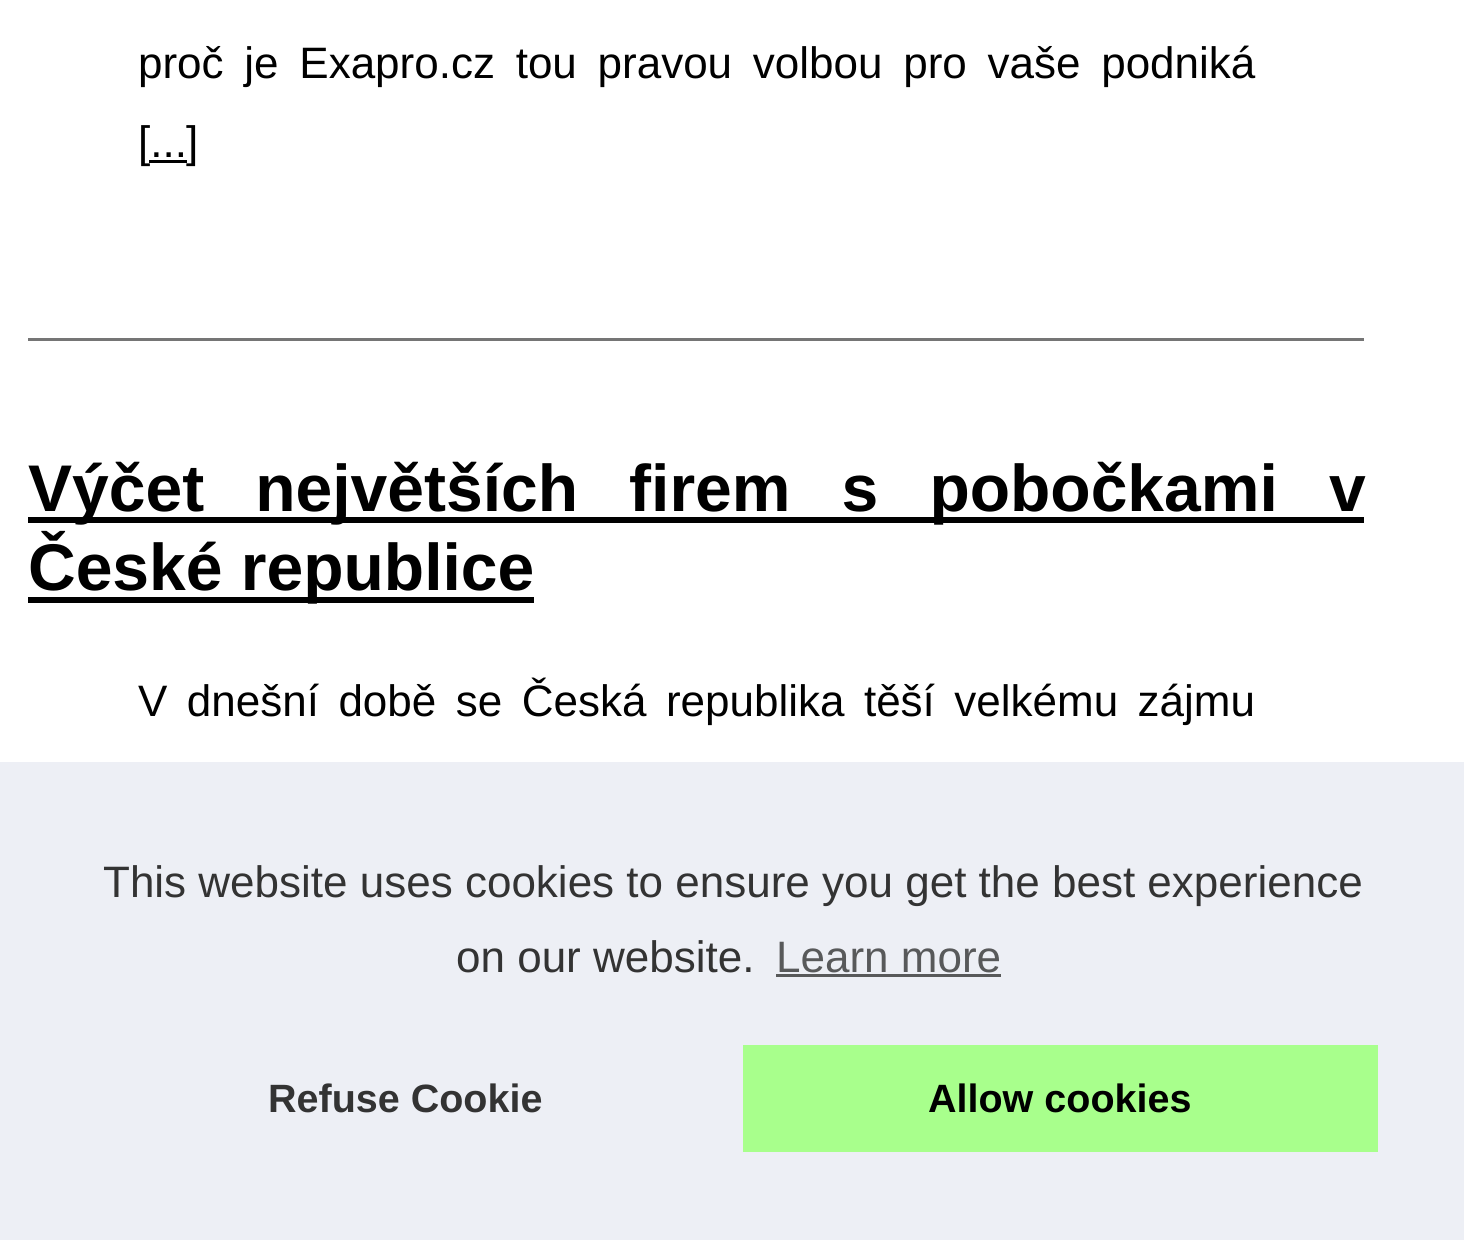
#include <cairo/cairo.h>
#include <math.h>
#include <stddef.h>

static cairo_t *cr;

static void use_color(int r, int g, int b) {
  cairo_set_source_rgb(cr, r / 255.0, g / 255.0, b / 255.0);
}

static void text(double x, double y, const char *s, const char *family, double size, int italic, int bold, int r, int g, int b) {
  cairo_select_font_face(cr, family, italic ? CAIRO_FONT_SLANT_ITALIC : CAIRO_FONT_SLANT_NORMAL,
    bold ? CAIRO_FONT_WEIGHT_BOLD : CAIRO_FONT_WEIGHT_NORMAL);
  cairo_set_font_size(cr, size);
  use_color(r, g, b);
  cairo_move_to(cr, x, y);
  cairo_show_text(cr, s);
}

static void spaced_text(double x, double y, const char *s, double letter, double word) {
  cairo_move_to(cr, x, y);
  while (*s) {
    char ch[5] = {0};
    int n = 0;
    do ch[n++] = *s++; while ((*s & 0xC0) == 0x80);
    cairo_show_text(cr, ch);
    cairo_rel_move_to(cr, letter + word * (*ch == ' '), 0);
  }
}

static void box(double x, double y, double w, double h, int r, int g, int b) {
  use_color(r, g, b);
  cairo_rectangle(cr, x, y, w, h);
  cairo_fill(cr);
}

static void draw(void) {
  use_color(255, 255, 255);
  cairo_paint(cr);
  box(149, 160, 38, 3, 0, 0, 0);
  box(28, 338, 1336, 3, 117, 117, 117);
  box(28, 517, 1336, 6, 0, 0, 0);
  box(28, 597, 506, 6, 0, 0, 0);
  box(0, 762, 1464, 478, 237, 239, 245);
  box(776, 974, 225, 3, 88, 89, 90);
  box(743, 1045, 635, 107, 168, 255, 140);
  cairo_select_font_face(cr, "Liberation Sans", CAIRO_FONT_SLANT_NORMAL, CAIRO_FONT_WEIGHT_NORMAL);
  cairo_set_font_size(cr, 44);
  use_color(0, 0, 0);
  spaced_text(138, 78, "proč je Exapro.cz tou pravou volbou pro vaše podniká", 0, 8.5);
  text(138, 157, "[...", "Liberation Sans", 44, 0, 0, 0, 0, 0);
  text(186, 157, "]", "Liberation Sans", 44, 0, 0, 0, 0, 0);
  cairo_select_font_face(cr, "Liberation Sans", CAIRO_FONT_SLANT_NORMAL, CAIRO_FONT_WEIGHT_BOLD);
  cairo_set_font_size(cr, 66);
  spaced_text(28, 511, "Výčet největších firem s pobočkami v", 0, 32.75);
  text(28, 590, "České republice", "Liberation Sans", 66, 0, 1, 0, 0, 0);
  cairo_select_font_face(cr, "Liberation Sans", CAIRO_FONT_SLANT_NORMAL, CAIRO_FONT_WEIGHT_NORMAL);
  cairo_set_font_size(cr, 44);
  spaced_text(138, 716, "V dnešní době se Česká republika těší velkému zájmu", 0, 7.25);
  text(103, 897, "This website uses cookies to ensure you get the best experience", "Liberation Sans", 44, 0, 0, 51, 51, 51);
  text(456, 972, "on our website.", "Liberation Sans", 44, 0, 0, 51, 51, 51);
  text(776, 972, "Learn more", "Liberation Sans", 44, 0, 0, 88, 89, 90);
  text(268, 1112, "Refuse Cookie", "Liberation Sans", 39.5, 0, 1, 51, 51, 51);
  text(928, 1112, "Allow cookies", "Liberation Sans", 39.5, 0, 1, 0, 0, 0);
}

int main(void) {
  cairo_surface_t *surface = cairo_image_surface_create(CAIRO_FORMAT_RGB24, 1464, 1240);
  cr = cairo_create(surface);
  cairo_font_options_t *options = cairo_font_options_create();
  cairo_font_options_set_hint_metrics(options, CAIRO_HINT_METRICS_OFF);
  cairo_font_options_set_hint_style(options, CAIRO_HINT_STYLE_NONE);
  cairo_set_font_options(cr, options);
  cairo_set_miter_limit(cr, 4);
  draw();
  cairo_surface_write_to_png(surface, "out.png");
  cairo_font_options_destroy(options);
  cairo_destroy(cr);
  cairo_surface_destroy(surface);
  return 0;
}
